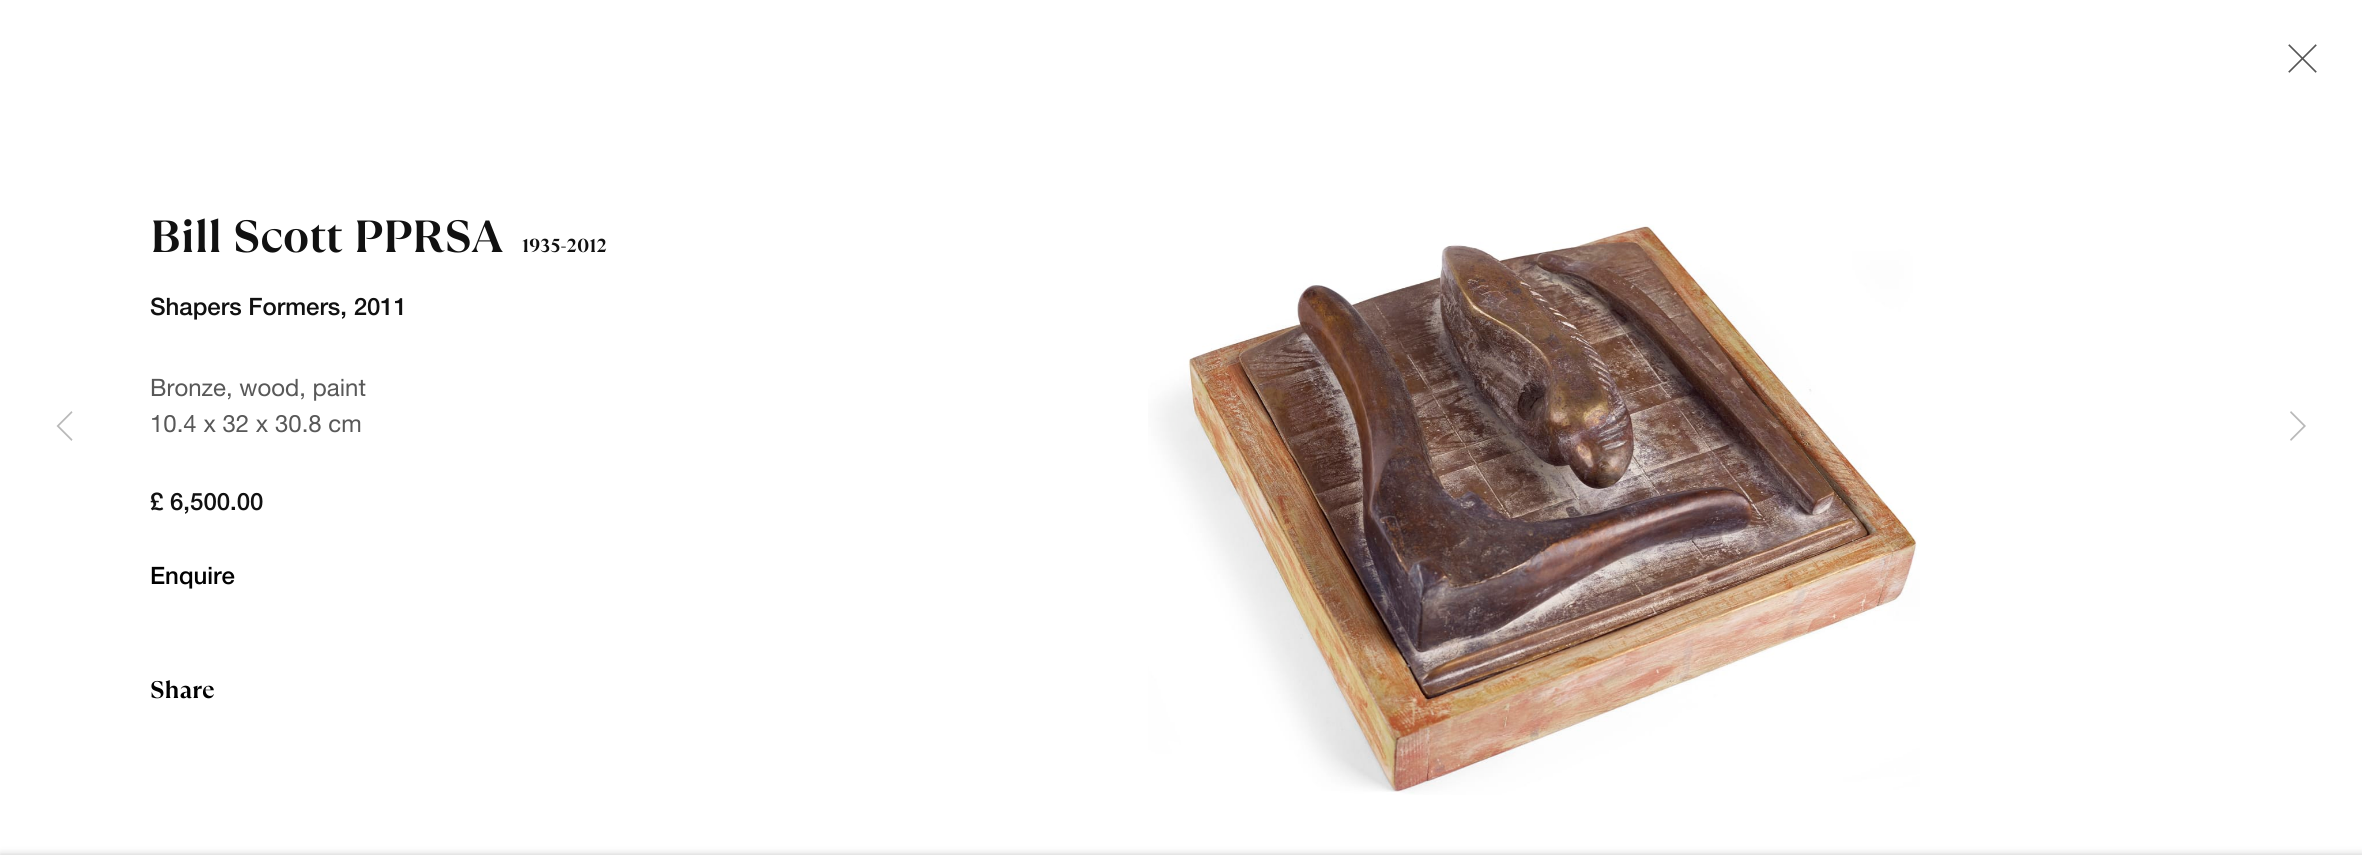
#include <cairo/cairo.h>
#include <math.h>
#include <stddef.h>

static cairo_t *cr;

static void use_color(int r, int g, int b) {
  cairo_set_source_rgb(cr, r / 255.0, g / 255.0, b / 255.0);
}

static void text(double x, double y, const char *s, const char *family, double size, int italic, int bold, int r, int g, int b) {
  cairo_select_font_face(cr, family, italic ? CAIRO_FONT_SLANT_ITALIC : CAIRO_FONT_SLANT_NORMAL,
    bold ? CAIRO_FONT_WEIGHT_BOLD : CAIRO_FONT_WEIGHT_NORMAL);
  cairo_set_font_size(cr, size);
  use_color(r, g, b);
  cairo_move_to(cr, x, y);
  cairo_show_text(cr, s);
}

static void round_rect(double x, double y, double w, double h, double r) {
  cairo_new_sub_path(cr);
  cairo_arc(cr, x + w - r, y + h - r, r, 0, M_PI / 2);
  cairo_arc(cr, x + r, y + h - r, r, M_PI / 2, M_PI);
  cairo_arc(cr, x + r, y + r, r, M_PI, 1.5 * M_PI);
  cairo_arc(cr, x + w - r, y + r, r, 1.5 * M_PI, 2 * M_PI);
  cairo_close_path(cr);
}

static void shadow(double x, double y, double w, double h, double r, double blur, double alpha) {
  cairo_push_group_with_content(cr, CAIRO_CONTENT_ALPHA);
  cairo_set_operator(cr, CAIRO_OPERATOR_SOURCE);
  for (int i = 15; i >= -15 && fmin(w, h) + blur * i / 3 > 0; i -= 2) {
    double e = blur * i / 6;
    cairo_set_source_rgba(cr, 0, 0, 0, alpha * erfc((i - 1) / 8.5) / 2);
    round_rect(x - e, y - e, w + 2 * e, h + 2 * e, fmax(0, fmin(r + e + blur * .6, fmin(w, h) / 2 + e)));
    cairo_fill(cr);
  }
  cairo_pattern_t *soft = cairo_pop_group(cr);
  cairo_mask(cr, soft);
  cairo_pattern_destroy(soft);
}

static void picture(const char *path, double x, double y, double w, double h) {
  cairo_surface_t *image = cairo_image_surface_create_from_png(path);
  cairo_save(cr);
  cairo_set_source_surface(cr, image, x, y);
  cairo_rectangle(cr, x, y, w, h);
  cairo_fill(cr);
  cairo_restore(cr);
  cairo_surface_destroy(image);
}

static void draw(void) {
  use_color(255, 255, 255);
  cairo_paint(cr);
  picture("img_01.png", 2288, 44, 29, 29);
  picture("img_02.png", 1148, 224, 772, 571);
  use_color(185, 185, 185);
  cairo_new_path(cr);
  cairo_move_to(cr, 57.5, 427);
  cairo_line_to(cr, 71.5, 441);
  cairo_line_to(cr, 72.5, 439.5);
  cairo_line_to(cr, 59, 426);
  cairo_line_to(cr, 72.5, 412.5);
  cairo_line_to(cr, 71.5, 411);
  cairo_line_to(cr, 56.5, 426);
  cairo_close_path(cr);
  cairo_fill(cr);
  cairo_new_path(cr);
  cairo_move_to(cr, 2306, 426);
  cairo_line_to(cr, 2291, 411);
  cairo_line_to(cr, 2290, 412.5);
  cairo_line_to(cr, 2303.5, 426);
  cairo_line_to(cr, 2290, 439.5);
  cairo_line_to(cr, 2291, 441);
  cairo_close_path(cr);
  cairo_fill(cr);
  use_color(0, 0, 0);
  shadow(0, 855, 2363, 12, 0, 4, 0.23);
  text(150, 252, "Bill Scott PPRSA", "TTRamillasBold", 45, 0, 1, 17, 17, 17);
  text(522, 252, "1935-2012", "TTRamillasBold", 18.75, 0, 1, 17, 17, 17);
  text(150, 315, "Shapers Formers, 2011", "Helvetica Neue Medium", 24, 0, 0, 17, 17, 17);
  text(150, 396, "Bronze, wood, paint", "Helvetica Neue", 24, 0, 0, 88, 88, 88);
  text(150, 432, "10.4 x 32 x 30.8 cm", "Helvetica Neue", 24, 0, 0, 88, 88, 88);
  text(150, 510, "£ 6,500.00", "Helvetica Neue Medium", 24, 0, 0, 17, 17, 17);
  text(150, 584, "Enquire", "Helvetica Neue Medium", 24, 0, 0, 1, 1, 1);
  text(150, 698, "Share", "TTRamillasBold", 24, 0, 1, 1, 1, 1);
}

int main(void) {
  cairo_surface_t *surface = cairo_image_surface_create(CAIRO_FORMAT_RGB24, 2362, 855);
  cr = cairo_create(surface);
  cairo_font_options_t *options = cairo_font_options_create();
  cairo_font_options_set_hint_metrics(options, CAIRO_HINT_METRICS_OFF);
  cairo_font_options_set_hint_style(options, CAIRO_HINT_STYLE_NONE);
  cairo_set_font_options(cr, options);
  cairo_set_miter_limit(cr, 4);
  draw();
  cairo_surface_write_to_png(surface, "out.png");
  cairo_font_options_destroy(options);
  cairo_destroy(cr);
  cairo_surface_destroy(surface);
  return 0;
}
